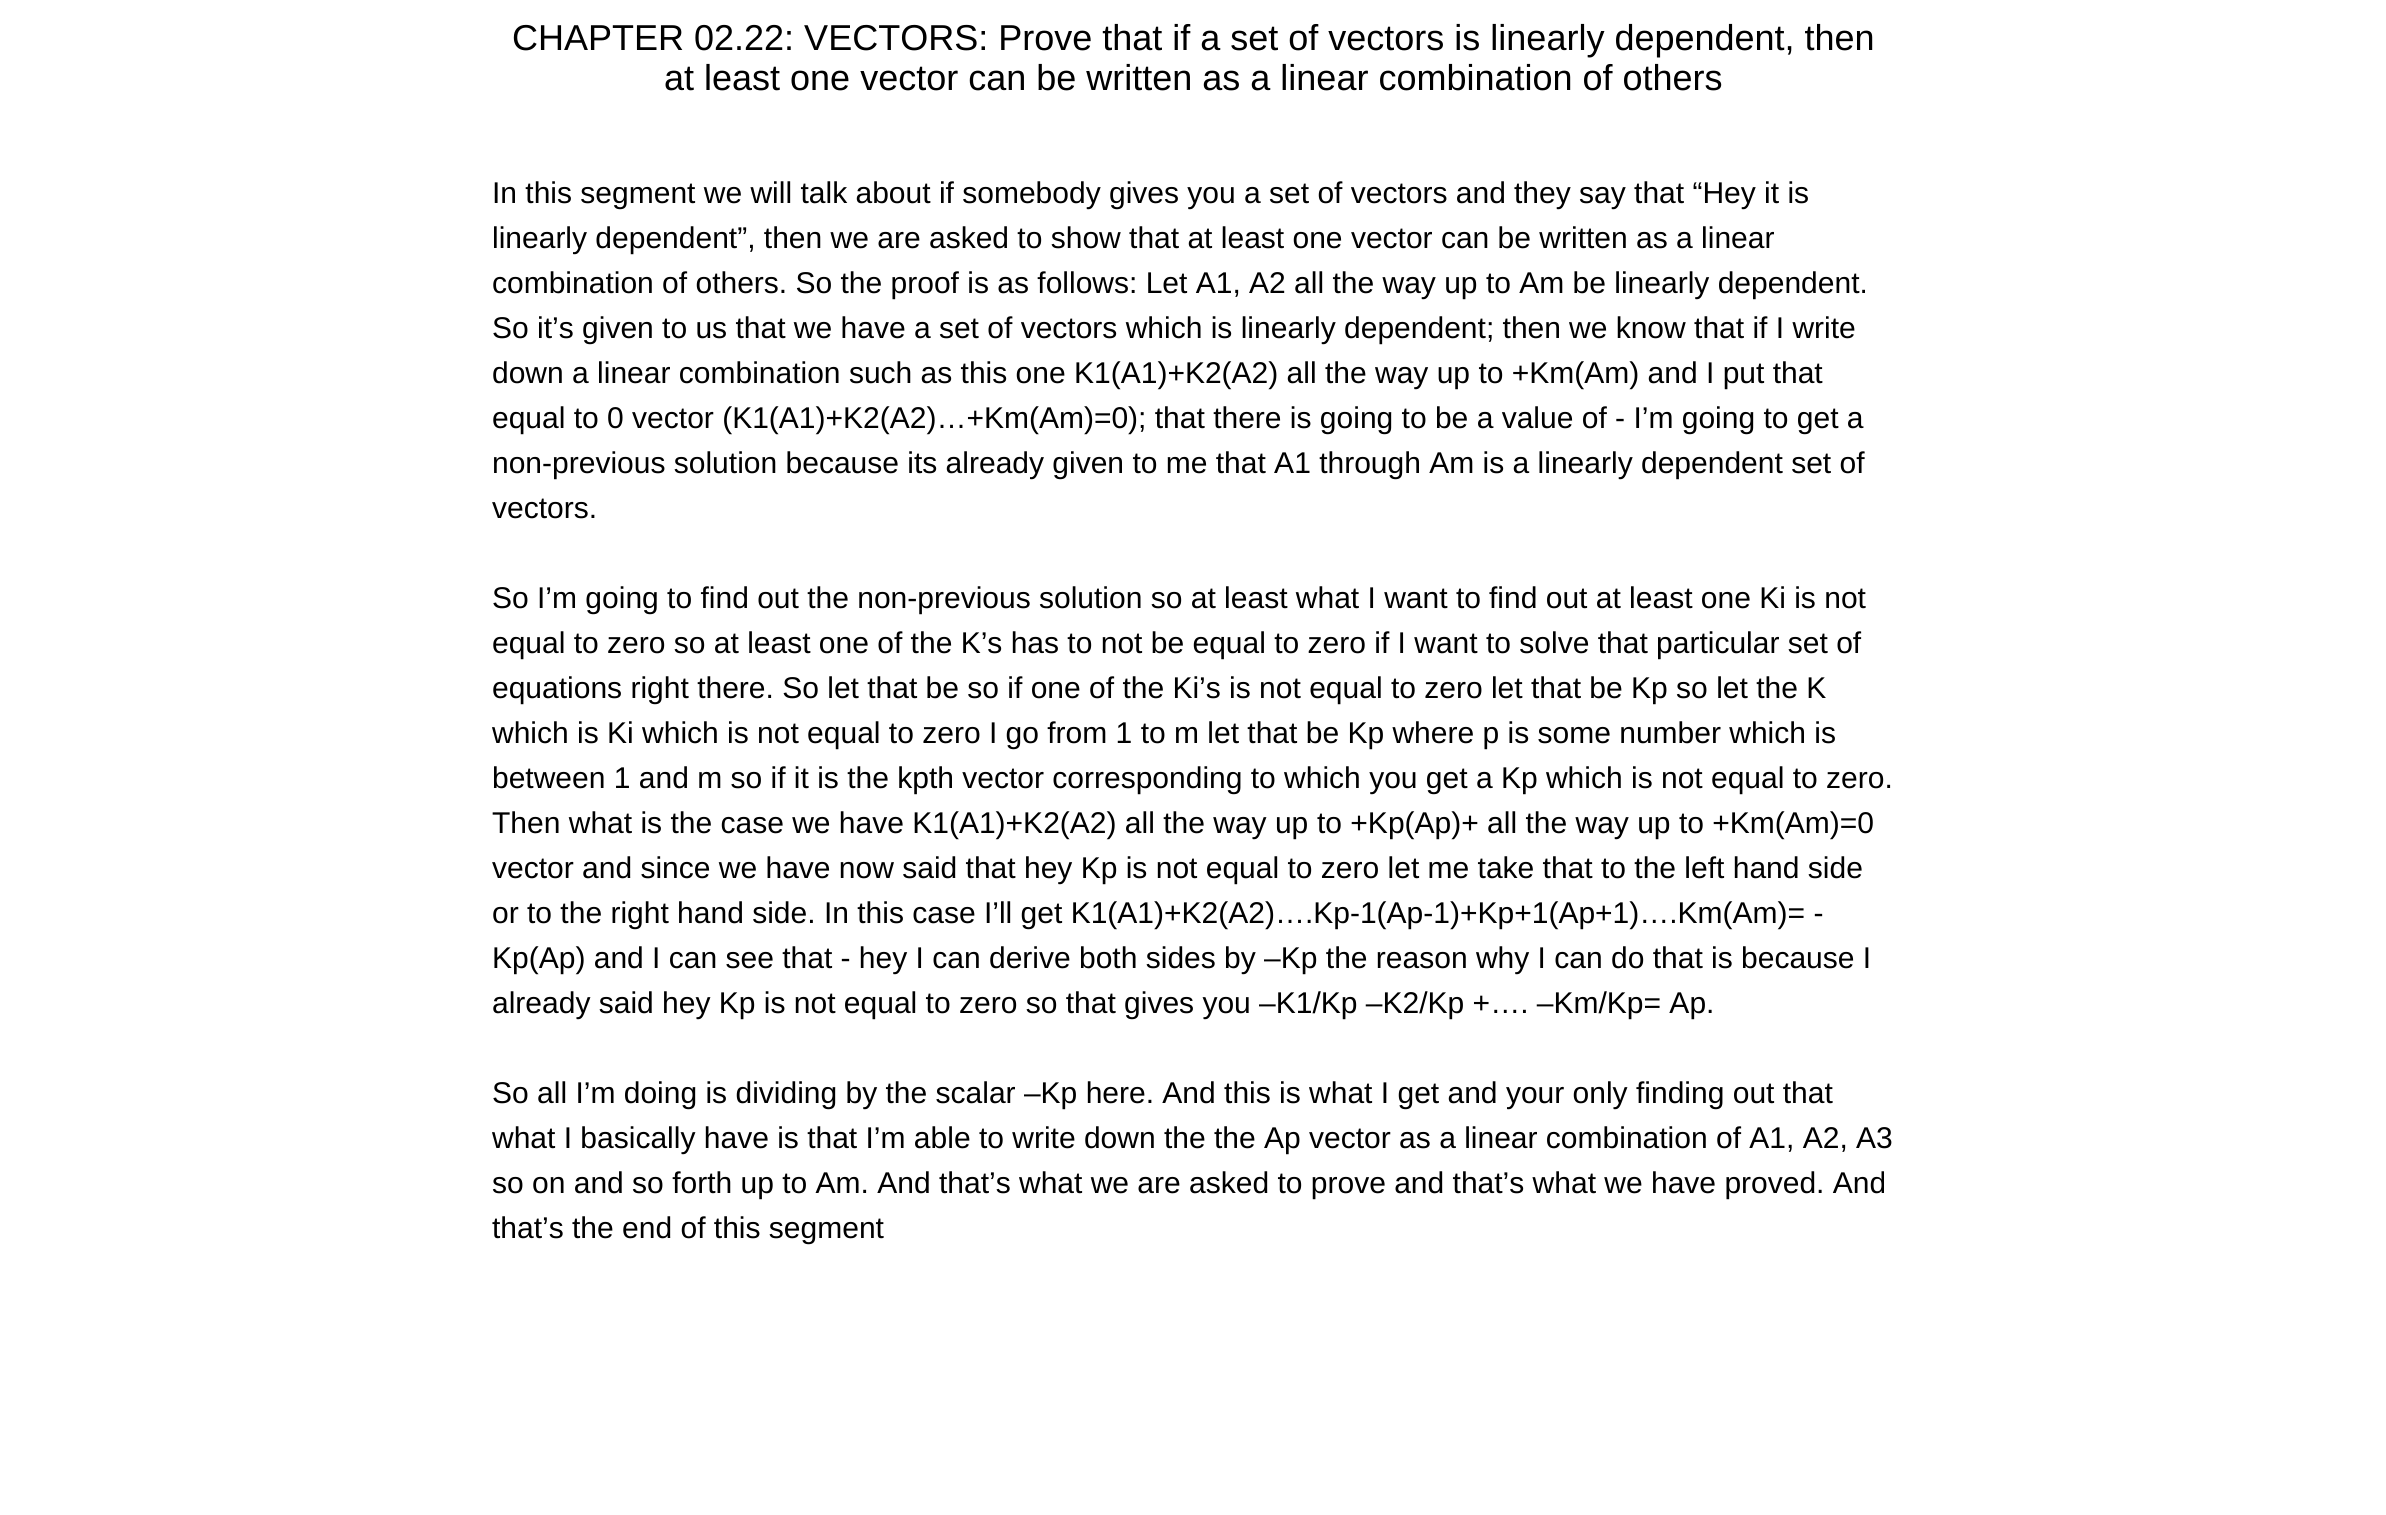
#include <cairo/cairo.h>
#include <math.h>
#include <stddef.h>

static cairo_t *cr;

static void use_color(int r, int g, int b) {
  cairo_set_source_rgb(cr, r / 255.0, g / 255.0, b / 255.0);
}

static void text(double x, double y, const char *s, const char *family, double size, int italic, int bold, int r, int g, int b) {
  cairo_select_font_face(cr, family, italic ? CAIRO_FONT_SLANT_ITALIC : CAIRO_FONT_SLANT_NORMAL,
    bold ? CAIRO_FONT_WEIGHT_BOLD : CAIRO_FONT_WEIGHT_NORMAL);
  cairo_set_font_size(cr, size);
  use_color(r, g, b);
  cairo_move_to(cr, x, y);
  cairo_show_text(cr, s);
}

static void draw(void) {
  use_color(255, 255, 255);
  cairo_paint(cr);
  text(512, 50, "CHAPTER 02.22: VECTORS: Prove that if a set of vectors is linearly dependent, then", "Liberation Sans", 36, 0, 0, 0, 0, 0);
  text(664, 90, "at least one vector can be written as a linear combination of others", "Liberation Sans", 36, 0, 0, 0, 0, 0);
  text(492, 203, "In this segment we will talk about if somebody gives you a set of vectors and", "Liberation Sans", 30, 0, 0, 0, 0, 0);
  text(1514, 203, "they say that “Hey it is", "Liberation Sans", 30, 0, 0, 0, 0, 0);
  text(492, 248, "linearly dependent”, then we are asked to show that at least one vector can be written as a linear", "Liberation Sans", 30, 0, 0, 0, 0, 0);
  text(492, 293, "combination of others. So the proof is as follows: Let A1, A2 all the way up to Am be linearly dependent.", "Liberation Sans", 30, 0, 0, 0, 0, 0);
  text(492, 338, "So it’s given to us that we have a set of vectors which is linearly dependent; then", "Liberation Sans", 30, 0, 0, 0, 0, 0);
  text(1569, 338, "we know that if I write", "Liberation Sans", 30, 0, 0, 0, 0, 0);
  text(492, 383, "down a linear combination such as this one K1(A1)+K2(A2) all the way up to +Km(Am) and I put that", "Liberation Sans", 30, 0, 0, 0, 0, 0);
  text(492, 428, "equal to 0 vector (K1(A1)+K2(A2)…+Km(Am)=0); that there is going to be a value of - I’m going to get a", "Liberation Sans", 30, 0, 0, 0, 0, 0);
  text(492, 473, "non-previous solution because its already given to me that A1 through Am is a linearly", "Liberation Sans", 30, 0, 0, 0, 0, 0);
  text(1641, 473, "dependent set of", "Liberation Sans", 30, 0, 0, 0, 0, 0);
  text(492, 518, "vectors.", "Liberation Sans", 30, 0, 0, 0, 0, 0);
  text(492, 608, "So I’m going to find out the non-previous solution so at least what I want to", "Liberation Sans", 30, 0, 0, 0, 0, 0);
  text(1489, 608, "find out at least one Ki is not", "Liberation Sans", 30, 0, 0, 0, 0, 0);
  text(492, 653, "equal to zero so at least one of the K’s has to not be equal to zero if I want to solve that particular set of", "Liberation Sans", 30, 0, 0, 0, 0, 0);
  text(492, 698, "equations right there. So let that be so if one of the Ki’s is not equal to zero let", "Liberation Sans", 30, 0, 0, 0, 0, 0);
  text(1531, 698, "that be Kp so let the K", "Liberation Sans", 30, 0, 0, 0, 0, 0);
  text(492, 743, "which is Ki which is not equal to zero I go from 1 to m let that be Kp where p is some number which is", "Liberation Sans", 30, 0, 0, 0, 0, 0);
  text(492, 788, "between 1 and m so if it is the kpth vector corresponding to which you get a Kp which is not equal to zero.", "Liberation Sans", 30, 0, 0, 0, 0, 0);
  text(492, 833, "Then what is the case we have K1(A1)+K2(A2) all the way up", "Liberation Sans", 30, 0, 0, 0, 0, 0);
  text(1317, 833, "to +Kp(Ap)+ all the way up to +Km(Am)=0", "Liberation Sans", 30, 0, 0, 0, 0, 0);
  text(492, 878, "vector and since we have now said that hey Kp is not equal to zero let me take that to the left hand side", "Liberation Sans", 30, 0, 0, 0, 0, 0);
  text(492, 923, "or to the right hand side. In this case I’ll get K1(A1)+K2(A2)….Kp-1(Ap-1)+Kp+1(Ap+1)….Km(Am)= -", "Liberation Sans", 30, 0, 0, 0, 0, 0);
  text(492, 968, "Kp(Ap) and I can see that - hey I can derive both sides by –Kp the reason why I can do that is because I", "Liberation Sans", 30, 0, 0, 0, 0, 0);
  text(492, 1013, "already said hey Kp is not equal to zero so that gives you –K1/Kp –K2/Kp +…. –Km/Kp= Ap.", "Liberation Sans", 30, 0, 0, 0, 0, 0);
  text(492, 1103, "So all I’m doing is dividing by the scalar –Kp here. And this is what I get and your only finding out that", "Liberation Sans", 30, 0, 0, 0, 0, 0);
  text(492, 1148, "what I basically have is that I’m able to write down the the Ap vector as a linear combination of A1, A2, A3", "Liberation Sans", 30, 0, 0, 0, 0, 0);
  text(492, 1193, "so on and so forth up to Am. And that’s what we are asked to prove and that’s what we", "Liberation Sans", 30, 0, 0, 0, 0, 0);
  text(1651, 1193, "have proved. And", "Liberation Sans", 30, 0, 0, 0, 0, 0);
  text(492, 1238, "that’s the end of this segment", "Liberation Sans", 30, 0, 0, 0, 0, 0);
}

int main(void) {
  cairo_surface_t *surface = cairo_image_surface_create(CAIRO_FORMAT_RGB24, 2386, 1515);
  cr = cairo_create(surface);
  cairo_font_options_t *options = cairo_font_options_create();
  cairo_font_options_set_hint_metrics(options, CAIRO_HINT_METRICS_OFF);
  cairo_font_options_set_hint_style(options, CAIRO_HINT_STYLE_NONE);
  cairo_set_font_options(cr, options);
  cairo_set_miter_limit(cr, 4);
  draw();
  cairo_surface_write_to_png(surface, "out.png");
  cairo_font_options_destroy(options);
  cairo_destroy(cr);
  cairo_surface_destroy(surface);
  return 0;
}
